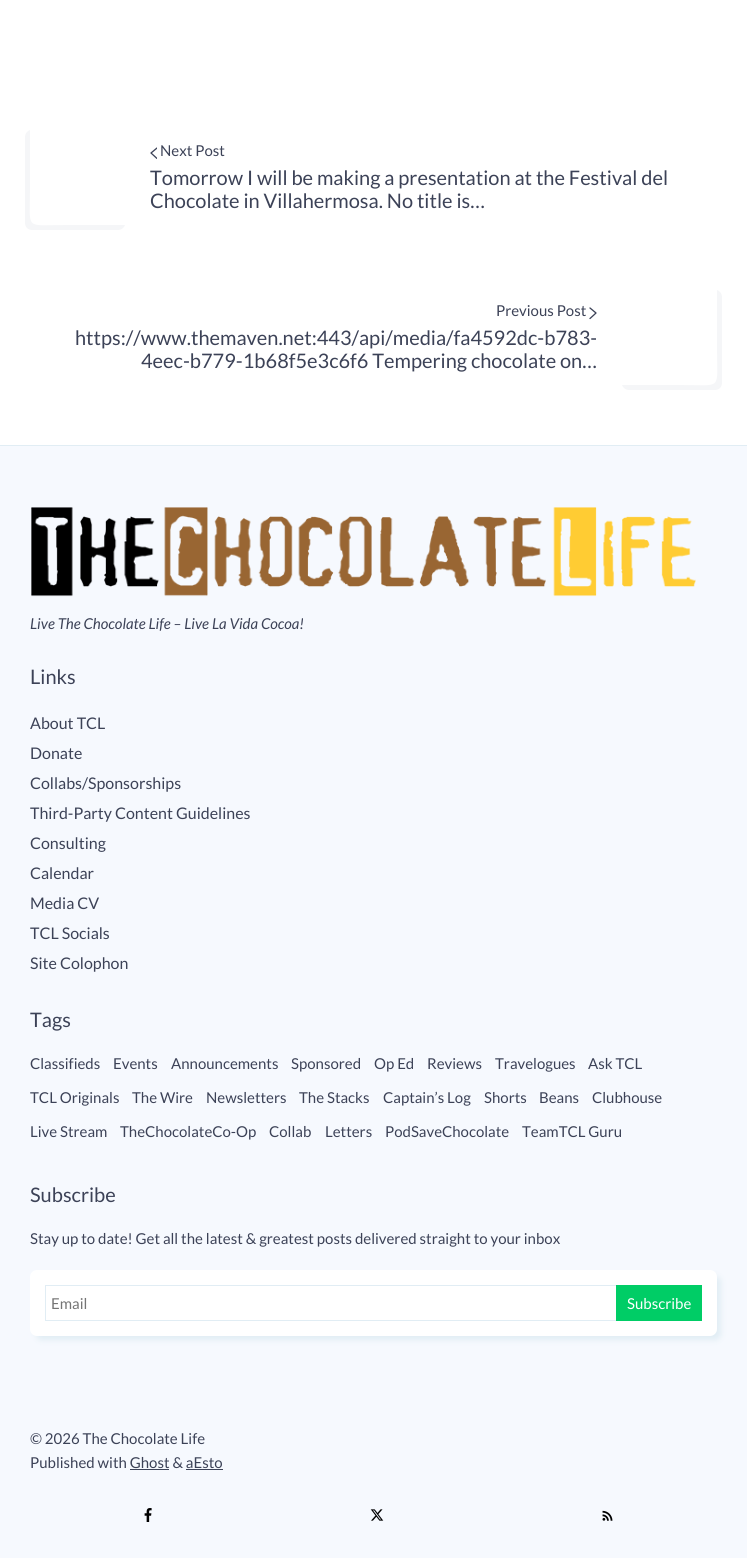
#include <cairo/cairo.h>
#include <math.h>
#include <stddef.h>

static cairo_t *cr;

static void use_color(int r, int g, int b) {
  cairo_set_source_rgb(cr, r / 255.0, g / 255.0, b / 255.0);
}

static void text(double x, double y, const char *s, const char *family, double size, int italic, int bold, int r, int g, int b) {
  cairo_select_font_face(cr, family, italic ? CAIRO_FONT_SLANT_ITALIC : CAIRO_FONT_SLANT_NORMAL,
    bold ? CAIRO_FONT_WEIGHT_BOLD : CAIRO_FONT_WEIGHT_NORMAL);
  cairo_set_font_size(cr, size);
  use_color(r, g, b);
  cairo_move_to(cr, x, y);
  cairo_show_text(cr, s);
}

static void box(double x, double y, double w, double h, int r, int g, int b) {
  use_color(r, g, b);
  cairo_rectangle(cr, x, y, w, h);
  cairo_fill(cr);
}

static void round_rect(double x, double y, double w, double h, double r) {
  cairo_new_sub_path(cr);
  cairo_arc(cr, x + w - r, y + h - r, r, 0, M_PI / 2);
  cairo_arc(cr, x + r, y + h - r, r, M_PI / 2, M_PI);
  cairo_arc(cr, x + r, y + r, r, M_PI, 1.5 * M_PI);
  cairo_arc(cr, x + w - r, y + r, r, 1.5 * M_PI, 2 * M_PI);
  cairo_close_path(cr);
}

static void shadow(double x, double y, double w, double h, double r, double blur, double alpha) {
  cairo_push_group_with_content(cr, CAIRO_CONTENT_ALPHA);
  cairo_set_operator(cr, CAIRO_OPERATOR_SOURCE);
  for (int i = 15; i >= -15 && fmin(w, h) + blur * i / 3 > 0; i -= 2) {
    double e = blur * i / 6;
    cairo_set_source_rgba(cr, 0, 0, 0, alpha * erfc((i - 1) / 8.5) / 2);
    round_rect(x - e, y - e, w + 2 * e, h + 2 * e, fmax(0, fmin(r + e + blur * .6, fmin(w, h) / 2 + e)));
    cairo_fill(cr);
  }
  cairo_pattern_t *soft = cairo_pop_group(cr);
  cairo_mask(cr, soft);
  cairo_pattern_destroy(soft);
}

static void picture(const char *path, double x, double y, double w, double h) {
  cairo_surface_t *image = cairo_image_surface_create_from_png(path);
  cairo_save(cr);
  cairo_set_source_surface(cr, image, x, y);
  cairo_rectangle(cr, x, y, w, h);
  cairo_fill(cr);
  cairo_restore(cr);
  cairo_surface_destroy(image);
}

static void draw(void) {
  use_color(255, 255, 255);
  cairo_paint(cr);
  use_color(245, 246, 248);
  cairo_new_path(cr);
  cairo_move_to(cr, 30, 130);
  cairo_curve_to(cr, 27, 131, 25, 134, 25, 137);
  cairo_line_to(cr, 25, 223);
  cairo_curve_to(cr, 25, 227, 28, 230, 32, 230);
  cairo_line_to(cr, 118, 230);
  cairo_curve_to(cr, 121, 230, 124, 228, 125, 225);
  cairo_line_to(cr, 66, 225);
  cairo_curve_to(cr, 24, 225, 30, 231, 30, 189);
  cairo_close_path(cr);
  cairo_fill(cr);
  cairo_save(cr);
  cairo_rectangle(cr, 150, 147, 7, 12);
  cairo_clip(cr);
  cairo_new_path(cr);
  cairo_move_to(cr, 157, 148);
  cairo_line_to(cr, 151, 153);
  cairo_line_to(cr, 157, 158.5);
  use_color(60, 66, 87);
  cairo_set_line_width(cr, 1.3);
  cairo_set_line_cap(cr, CAIRO_LINE_CAP_ROUND);
  cairo_set_line_join(cr, CAIRO_LINE_JOIN_ROUND);
  cairo_stroke(cr);
  cairo_restore(cr);
  cairo_new_path(cr);
  cairo_move_to(cr, 590, 318.5);
  cairo_line_to(cr, 596, 313);
  cairo_line_to(cr, 590, 308);
  use_color(60, 66, 87);
  cairo_set_line_width(cr, 1.3);
  cairo_set_line_cap(cr, CAIRO_LINE_CAP_ROUND);
  cairo_set_line_join(cr, CAIRO_LINE_JOIN_ROUND);
  cairo_stroke(cr);
  use_color(245, 246, 248);
  cairo_new_path(cr);
  cairo_move_to(cr, 622, 385);
  cairo_curve_to(cr, 623, 388, 626, 390, 629, 390);
  cairo_line_to(cr, 715, 390);
  cairo_curve_to(cr, 719, 390, 722, 387, 722, 383);
  cairo_line_to(cr, 722, 297);
  cairo_curve_to(cr, 722, 294, 720, 291, 717, 290);
  cairo_line_to(cr, 717, 349);
  cairo_curve_to(cr, 717, 391, 723, 385, 681, 385);
  cairo_close_path(cr);
  cairo_fill(cr);
  box(0, 446, 747, 1112, 246, 249, 254);
  box(0, 445, 747, 1, 225, 237, 244);
  picture("img_01.png", 31, 507, 665, 90);
  use_color(225, 237, 244);
  shadow(36, 1276, 685, 64, 6, 3, 1);
  use_color(255, 255, 255);
  round_rect(30, 1270, 687, 66, 7);
  cairo_fill(cr);
  cairo_rectangle(cr, 45.5, 1285.5, 574, 35);
  use_color(225, 237, 244);
  cairo_set_line_width(cr, 1);
  cairo_set_line_cap(cr, CAIRO_LINE_CAP_BUTT);
  cairo_set_line_join(cr, CAIRO_LINE_JOIN_MITER);
  cairo_stroke(cr);
  box(616, 1285, 86, 36, 0, 205, 102);
  box(130, 1469, 39, 1, 60, 66, 87);
  box(186, 1469, 37, 1, 60, 66, 87);
  picture("img_02.png", 144, 1508, 8, 14);
  picture("img_03.png", 370, 1509, 14, 12);
  picture("img_04.png", 602, 1510, 11, 11);
  text(160, 156, "Next Post", "Lato", 15, 0, 0, 60, 66, 87);
  text(150, 185, "Tomorrow I will be making a presentation at the Festival del", "Lato", 20, 0, 0, 60, 66, 87);
  text(150, 208, "Chocolate in Villahermosa. No title is…", "Lato", 20, 0, 0, 60, 66, 87);
  text(496, 316, "Previous Post", "Lato", 15, 0, 0, 60, 66, 87);
  text(75, 345, "https://www.themaven.net:443/api/media/fa4592dc-b783-", "Lato", 20, 0, 0, 60, 66, 87);
  text(141, 368, "4eec-b779-1b68f5e3c6f6 Tempering chocolate on…", "Lato", 20, 0, 0, 60, 66, 87);
  text(30, 629, "Live The Chocolate Life – Live La Vida Cocoa!", "Lato", 15, 1, 0, 60, 66, 87);
  text(30, 684, "Links", "Lato", 20, 0, 0, 60, 66, 87);
  text(30, 729, "About TCL", "Lato", 16, 0, 0, 60, 66, 87);
  text(30, 759, "Donate", "Lato", 16, 0, 0, 60, 66, 87);
  text(30, 789, "Collabs/Sponsorships", "Lato", 16, 0, 0, 60, 66, 87);
  text(30, 819, "Third-Party Content Guidelines", "Lato", 16, 0, 0, 60, 66, 87);
  text(30, 849, "Consulting", "Lato", 16, 0, 0, 60, 66, 87);
  text(30, 879, "Calendar", "Lato", 16, 0, 0, 60, 66, 87);
  text(30, 909, "Media CV", "Lato", 16, 0, 0, 60, 66, 87);
  text(30, 939, "TCL Socials", "Lato", 16, 0, 0, 60, 66, 87);
  text(30, 969, "Site Colophon", "Lato", 16, 0, 0, 60, 66, 87);
  text(30, 1027, "Tags", "Lato", 20, 0, 0, 60, 66, 87);
  text(30, 1069, "Classifieds", "Lato", 15, 0, 0, 60, 66, 87);
  text(113, 1069, "Events", "Lato", 15, 0, 0, 60, 66, 87);
  text(171, 1069, "Announcements", "Lato", 15, 0, 0, 60, 66, 87);
  text(291, 1069, "Sponsored", "Lato", 15, 0, 0, 60, 66, 87);
  text(374, 1069, "Op Ed", "Lato", 15, 0, 0, 60, 66, 87);
  text(427, 1069, "Reviews", "Lato", 15, 0, 0, 60, 66, 87);
  text(495, 1069, "Travelogues", "Lato", 15, 0, 0, 60, 66, 87);
  text(588, 1069, "Ask TCL", "Lato", 15, 0, 0, 60, 66, 87);
  text(30, 1103, "TCL Originals", "Lato", 15, 0, 0, 60, 66, 87);
  text(132, 1103, "The Wire", "Lato", 15, 0, 0, 60, 66, 87);
  text(206, 1103, "Newsletters", "Lato", 15, 0, 0, 60, 66, 87);
  text(299, 1103, "The Stacks", "Lato", 15, 0, 0, 60, 66, 87);
  text(383, 1103, "Captain’s Log", "Lato", 15, 0, 0, 60, 66, 87);
  text(484, 1103, "Shorts", "Lato", 15, 0, 0, 60, 66, 87);
  text(539, 1103, "Beans", "Lato", 15, 0, 0, 60, 66, 87);
  text(592, 1103, "Clubhouse", "Lato", 15, 0, 0, 60, 66, 87);
  text(30, 1137, "Live Stream", "Lato", 15, 0, 0, 60, 66, 87);
  text(120, 1137, "TheChocolateCo-Op", "Lato", 15, 0, 0, 60, 66, 87);
  text(269, 1137, "Collab", "Lato", 15, 0, 0, 60, 66, 87);
  text(325, 1137, "Letters", "Lato", 15, 0, 0, 60, 66, 87);
  text(385, 1137, "PodSaveChocolate", "Lato", 15, 0, 0, 60, 66, 87);
  text(522, 1137, "TeamTCL Guru", "Lato", 15, 0, 0, 60, 66, 87);
  text(30, 1202, "Subscribe", "Lato", 20, 0, 0, 60, 66, 87);
  text(30, 1244, "Stay up to date! Get all the latest & greatest posts delivered straight to your inbox", "Lato", 15, 0, 0, 60, 66, 87);
  text(51, 1309, "Email", "Lato", 15, 0, 0, 117, 117, 117);
  text(627, 1309, "Subscribe", "Lato", 15, 0, 0, 255, 255, 255);
  text(30, 1444, "© 2026 The Chocolate Life", "Lato", 15, 0, 0, 60, 66, 87);
  text(30, 1468, "Published with Ghost & aEsto", "Lato", 15, 0, 0, 60, 66, 87);
}

int main(void) {
  cairo_surface_t *surface = cairo_image_surface_create(CAIRO_FORMAT_RGB24, 747, 1558);
  cr = cairo_create(surface);
  cairo_font_options_t *options = cairo_font_options_create();
  cairo_font_options_set_hint_metrics(options, CAIRO_HINT_METRICS_OFF);
  cairo_font_options_set_hint_style(options, CAIRO_HINT_STYLE_NONE);
  cairo_set_font_options(cr, options);
  cairo_set_miter_limit(cr, 4);
  draw();
  cairo_surface_write_to_png(surface, "out.png");
  cairo_font_options_destroy(options);
  cairo_destroy(cr);
  cairo_surface_destroy(surface);
  return 0;
}
